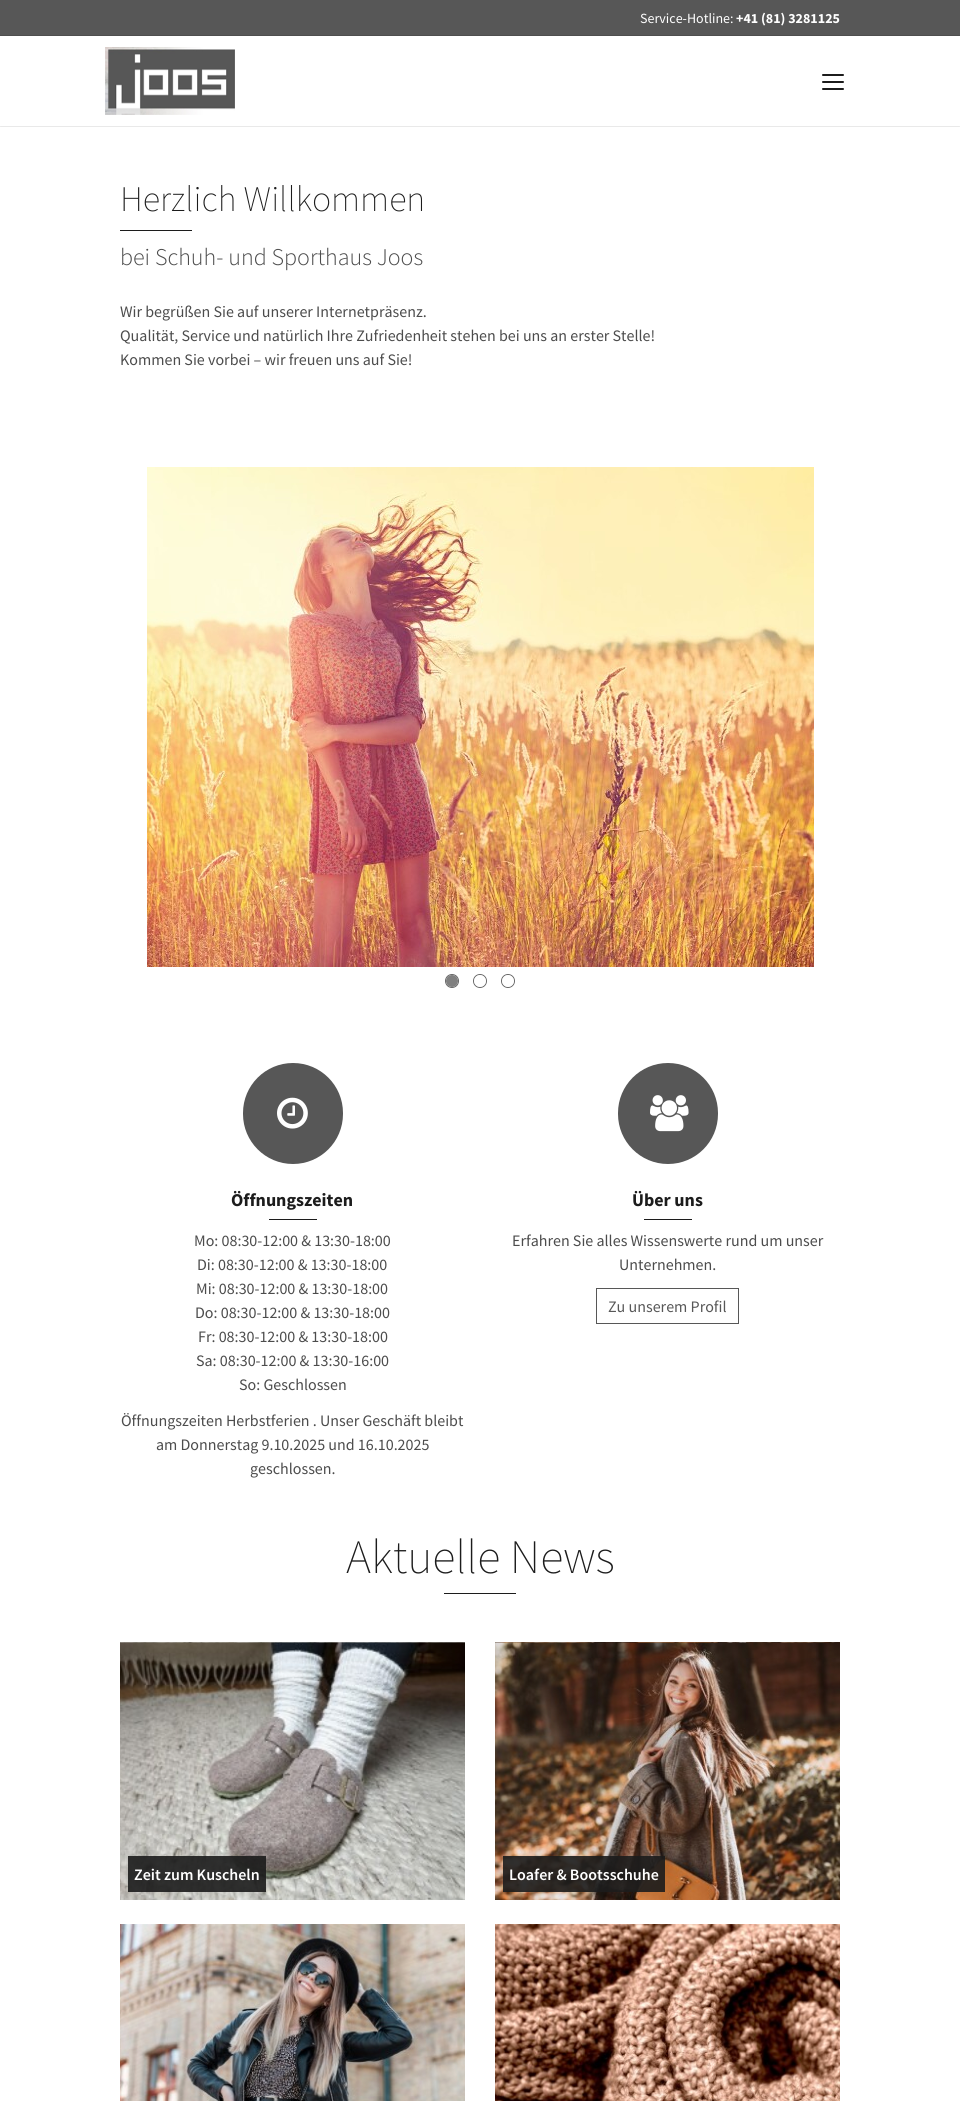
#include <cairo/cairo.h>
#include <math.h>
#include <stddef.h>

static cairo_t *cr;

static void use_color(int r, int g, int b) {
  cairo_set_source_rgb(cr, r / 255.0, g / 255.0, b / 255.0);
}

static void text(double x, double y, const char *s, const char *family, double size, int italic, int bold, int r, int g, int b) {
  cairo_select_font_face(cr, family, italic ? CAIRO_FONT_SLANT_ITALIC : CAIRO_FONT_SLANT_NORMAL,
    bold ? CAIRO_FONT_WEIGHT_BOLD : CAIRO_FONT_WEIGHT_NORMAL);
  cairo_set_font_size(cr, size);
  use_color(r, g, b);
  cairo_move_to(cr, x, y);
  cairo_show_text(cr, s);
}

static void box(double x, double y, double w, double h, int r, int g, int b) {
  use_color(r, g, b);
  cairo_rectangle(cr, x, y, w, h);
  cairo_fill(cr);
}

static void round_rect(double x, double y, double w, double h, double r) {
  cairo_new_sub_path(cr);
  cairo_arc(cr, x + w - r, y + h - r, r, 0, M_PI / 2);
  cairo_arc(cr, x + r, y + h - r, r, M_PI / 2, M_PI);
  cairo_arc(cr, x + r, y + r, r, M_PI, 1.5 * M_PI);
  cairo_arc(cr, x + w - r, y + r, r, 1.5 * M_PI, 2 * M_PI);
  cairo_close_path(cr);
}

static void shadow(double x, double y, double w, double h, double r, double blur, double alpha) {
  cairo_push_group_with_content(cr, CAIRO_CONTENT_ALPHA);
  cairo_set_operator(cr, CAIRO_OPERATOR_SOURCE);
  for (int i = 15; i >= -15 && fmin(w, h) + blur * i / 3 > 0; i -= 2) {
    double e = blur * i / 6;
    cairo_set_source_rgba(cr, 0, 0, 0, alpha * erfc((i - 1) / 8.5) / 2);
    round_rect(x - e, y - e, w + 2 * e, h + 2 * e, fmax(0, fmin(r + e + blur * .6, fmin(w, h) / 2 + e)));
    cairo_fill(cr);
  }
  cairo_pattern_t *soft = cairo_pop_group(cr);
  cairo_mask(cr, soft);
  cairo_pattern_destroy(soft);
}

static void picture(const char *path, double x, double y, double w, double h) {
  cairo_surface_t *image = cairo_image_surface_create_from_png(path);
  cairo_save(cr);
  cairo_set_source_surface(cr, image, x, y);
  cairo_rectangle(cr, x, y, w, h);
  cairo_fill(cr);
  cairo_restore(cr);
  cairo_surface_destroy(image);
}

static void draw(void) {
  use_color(255, 255, 255);
  cairo_paint(cr);
  box(0, 0, 960, 35, 87, 87, 87);
  box(0, 35, 960, 1, 78, 78, 78);
  cairo_save(cr);
  cairo_rectangle(cr, 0, 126, 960, 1);
  cairo_clip(cr);
  use_color(0, 0, 0);
  shadow(0, 37, 960, 90, 0, 0.5, 0.1);
  cairo_restore(cr);
  picture("img_01.png", 105, 47, 130, 68);
  use_color(28, 28, 28);
  round_rect(822, 74, 22, 2, 1);
  cairo_fill(cr);
  round_rect(822, 81, 22, 2, 1);
  cairo_fill(cr);
  round_rect(822, 88, 22, 2, 1);
  cairo_fill(cr);
  box(120, 230, 72, 1, 28, 28, 28);
  picture("img_02.png", 147, 467, 667, 500);
  cairo_arc(cr, 452, 981, 6.5, 0, 2 * M_PI);
  use_color(102, 102, 102);
  cairo_set_line_width(cr, 1);
  cairo_stroke(cr);
  use_color(128, 128, 128);
  cairo_arc(cr, 452, 981, 6, 0, 2 * M_PI);
  cairo_fill(cr);
  cairo_arc(cr, 480, 981, 6.5, 0, 2 * M_PI);
  use_color(102, 102, 102);
  cairo_stroke(cr);
  cairo_set_source_rgba(cr, 1, 1, 1, 0.6);
  cairo_arc(cr, 480, 981, 6, 0, 2 * M_PI);
  cairo_fill(cr);
  cairo_arc(cr, 508, 981, 6.5, 0, 2 * M_PI);
  use_color(102, 102, 102);
  cairo_stroke(cr);
  cairo_set_source_rgba(cr, 1, 1, 1, 0.6);
  cairo_arc(cr, 508, 981, 6, 0, 2 * M_PI);
  cairo_fill(cr);
  use_color(87, 87, 87);
  round_rect(243, 1063, 100, 101, 50);
  cairo_fill(cr);
  picture("img_03.png", 277, 1097, 31, 32);
  box(269, 1219, 48, 1, 28, 28, 28);
  use_color(87, 87, 87);
  round_rect(618, 1063, 100, 101, 50);
  cairo_fill(cr);
  picture("img_04.png", 650, 1095, 39, 37);
  box(644, 1219, 48, 1, 28, 28, 28);
  cairo_rectangle(cr, 596.5, 1288.5, 142, 35);
  use_color(87, 87, 87);
  cairo_stroke(cr);
  box(444, 1593, 72, 1, 28, 28, 28);
  picture("img_05.png", 120, 1642, 345, 258);
  cairo_set_source_rgba(cr, 0.11, 0.11, 0.11, 0.9);
  cairo_rectangle(cr, 128, 1856, 138, 36);
  cairo_fill(cr);
  picture("img_06.png", 495, 1642, 345, 258);
  cairo_rectangle(cr, 503, 1856, 162, 36);
  cairo_fill(cr);
  picture("img_07.png", 120, 1924, 345, 177);
  picture("img_08.png", 495, 1924, 345, 177);
  text(640, 23, "Service-Hotline:", "Source Sans Pro", 14, 0, 0, 255, 255, 255);
  text(736, 23, "+41 (81) 3281125", "Source Sans Pro", 14, 0, 1, 255, 255, 255);
  text(120, 211, "Herzlich Willkommen", "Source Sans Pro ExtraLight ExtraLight", 36, 0, 0, 28, 28, 28);
  text(120, 265, "bei Schuh- und Sporthaus Joos", "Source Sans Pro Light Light", 24, 0, 0, 76, 76, 76);
  text(120, 317, "Wir begrüßen Sie auf unserer Internetpräsenz.", "Source Sans Pro", 16, 0, 0, 76, 76, 76);
  text(120, 341, "Qualität, Service und natürlich Ihre Zufriedenheit stehen bei uns an erster Stelle!", "Source Sans Pro", 16, 0, 0, 76, 76, 76);
  text(120, 365, "Kommen Sie vorbei – wir freuen uns auf Sie!", "Source Sans Pro", 16, 0, 0, 76, 76, 76);
  text(231, 1206, "Öffnungszeiten", "Source Sans Pro", 18, 0, 1, 28, 28, 28);
  text(194, 1246, "Mo: 08:30-12:00 & 13:30-18:00", "Source Sans Pro", 16, 0, 0, 76, 76, 76);
  text(197, 1270, "Di: 08:30-12:00 & 13:30-18:00", "Source Sans Pro", 16, 0, 0, 76, 76, 76);
  text(196, 1294, "Mi: 08:30-12:00 & 13:30-18:00", "Source Sans Pro", 16, 0, 0, 76, 76, 76);
  text(195, 1318, "Do: 08:30-12:00 & 13:30-18:00", "Source Sans Pro", 16, 0, 0, 76, 76, 76);
  text(198, 1342, "Fr: 08:30-12:00 & 13:30-18:00", "Source Sans Pro", 16, 0, 0, 76, 76, 76);
  text(196, 1366, "Sa: 08:30-12:00 & 13:30-16:00", "Source Sans Pro", 16, 0, 0, 76, 76, 76);
  text(239, 1390, "So: Geschlossen", "Source Sans Pro", 16, 0, 0, 76, 76, 76);
  text(121, 1426, "Öffnungszeiten Herbstferien . Unser Geschäft bleibt", "Source Sans Pro", 16, 0, 0, 76, 76, 76);
  text(156, 1450, "am Donnerstag 9.10.2025 und 16.10.2025", "Source Sans Pro", 16, 0, 0, 76, 76, 76);
  text(250, 1474, "geschlossen.", "Source Sans Pro", 16, 0, 0, 76, 76, 76);
  text(632, 1206, "Über uns", "Source Sans Pro", 18, 0, 1, 28, 28, 28);
  text(512, 1246, "Erfahren Sie alles Wissenswerte rund um unser", "Source Sans Pro", 16, 0, 0, 76, 76, 76);
  text(619, 1270, "Unternehmen.", "Source Sans Pro", 16, 0, 0, 76, 76, 76);
  text(608, 1312, "Zu unserem Profil", "Source Sans Pro", 16, 0, 0, 87, 87, 87);
  text(346, 1573, "Aktuelle News", "Source Sans Pro ExtraLight ExtraLight", 48, 0, 0, 28, 28, 28);
  text(134, 1880, "Zeit zum Kuscheln", "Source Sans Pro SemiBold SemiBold", 16, 0, 0, 255, 255, 255);
  text(509, 1880, "Loafer & Bootsschuhe", "Source Sans Pro SemiBold SemiBold", 16, 0, 0, 255, 255, 255);
}

int main(void) {
  cairo_surface_t *surface = cairo_image_surface_create(CAIRO_FORMAT_RGB24, 960, 2101);
  cr = cairo_create(surface);
  cairo_font_options_t *options = cairo_font_options_create();
  cairo_font_options_set_hint_metrics(options, CAIRO_HINT_METRICS_OFF);
  cairo_font_options_set_hint_style(options, CAIRO_HINT_STYLE_NONE);
  cairo_set_font_options(cr, options);
  cairo_set_miter_limit(cr, 4);
  draw();
  cairo_surface_write_to_png(surface, "out.png");
  cairo_font_options_destroy(options);
  cairo_destroy(cr);
  cairo_surface_destroy(surface);
  return 0;
}
